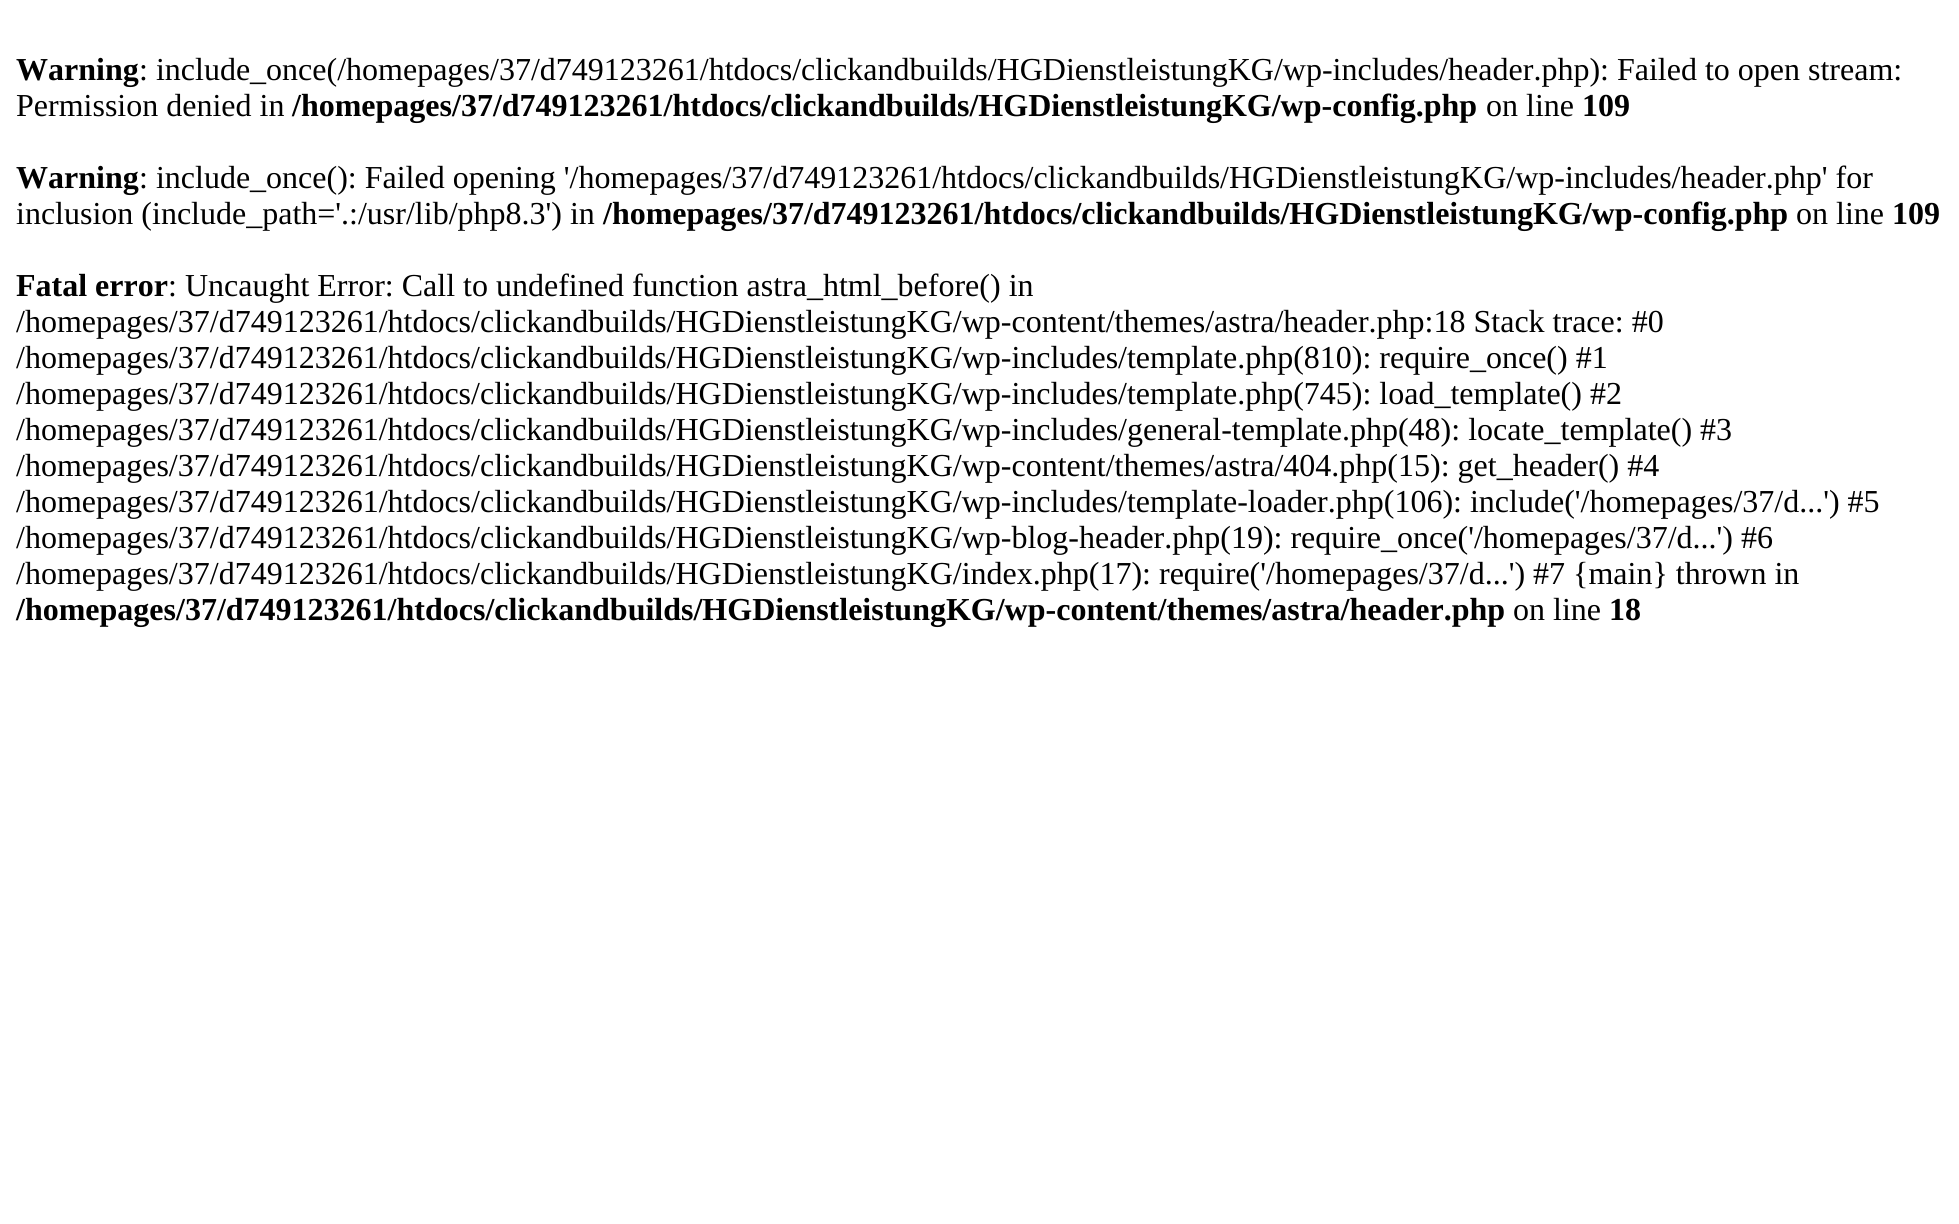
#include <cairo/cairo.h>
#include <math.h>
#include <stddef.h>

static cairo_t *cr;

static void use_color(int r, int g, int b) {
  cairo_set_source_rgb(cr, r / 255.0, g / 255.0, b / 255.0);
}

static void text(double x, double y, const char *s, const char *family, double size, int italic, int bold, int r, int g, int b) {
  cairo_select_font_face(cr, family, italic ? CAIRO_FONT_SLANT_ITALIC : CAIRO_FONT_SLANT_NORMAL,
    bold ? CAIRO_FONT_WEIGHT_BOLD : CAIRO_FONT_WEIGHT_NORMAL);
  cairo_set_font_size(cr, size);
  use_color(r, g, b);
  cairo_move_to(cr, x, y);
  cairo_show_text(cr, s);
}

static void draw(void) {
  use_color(255, 255, 255);
  cairo_paint(cr);
  text(16, 80, "Warning", "Liberation Serif", 32, 0, 1, 0, 0, 0);
  text(139, 80, ": include_once(/homepages/37/d749123261/htdocs/clickandbuilds/HGDienstleistungKG/wp-includes/header.php): Failed to open stream:", "Liberation Serif", 32, 0, 0, 0, 0, 0);
  text(16, 116, "Permission denied in", "Liberation Serif", 32, 0, 0, 0, 0, 0);
  text(292, 116, "/homepages/37/d749123261/htdocs/clickandbuilds/HGDienstleistungKG/wp-config.php", "Liberation Serif", 32, 0, 1, 0, 0, 0);
  text(1486, 116, "on line", "Liberation Serif", 32, 0, 0, 0, 0, 0);
  text(1582, 116, "109", "Liberation Serif", 32, 0, 1, 0, 0, 0);
  text(16, 188, "Warning", "Liberation Serif", 32, 0, 1, 0, 0, 0);
  text(139, 188, ": include_once(): Failed opening '/homepages/37/d749123261/htdocs/clickandbuilds/HGDienstleistungKG/wp-includes/header.php' for", "Liberation Serif", 32, 0, 0, 0, 0, 0);
  text(16, 224, "inclusion (include_path='.:/usr/lib/php8.3') in", "Liberation Serif", 32, 0, 0, 0, 0, 0);
  text(603, 224, "/homepages/37/d749123261/htdocs/clickandbuilds/HGDienstleistungKG/wp-config.php", "Liberation Serif", 32, 0, 1, 0, 0, 0);
  text(1796, 224, "on line", "Liberation Serif", 32, 0, 0, 0, 0, 0);
  text(1892, 224, "109", "Liberation Serif", 32, 0, 1, 0, 0, 0);
  text(16, 296, "Fatal error", "Liberation Serif", 32, 0, 1, 0, 0, 0);
  text(168, 296, ": Uncaught Error: Call to undefined function astra_html_before() in", "Liberation Serif", 32, 0, 0, 0, 0, 0);
  text(16, 332, "/homepages/37/d749123261/htdocs/clickandbuilds/HGDienstleistungKG/wp-content/themes/astra/header.php:18 Stack trace: #0", "Liberation Serif", 32, 0, 0, 0, 0, 0);
  text(16, 368, "/homepages/37/d749123261/htdocs/clickandbuilds/HGDienstleistungKG/wp-includes/template.php(810): require_once() #1", "Liberation Serif", 32, 0, 0, 0, 0, 0);
  text(16, 404, "/homepages/37/d749123261/htdocs/clickandbuilds/HGDienstleistungKG/wp-includes/template.php(745): load_template() #2", "Liberation Serif", 32, 0, 0, 0, 0, 0);
  text(16, 440, "/homepages/37/d749123261/htdocs/clickandbuilds/HGDienstleistungKG/wp-includes/general-template.php(48): locate_template() #3", "Liberation Serif", 32, 0, 0, 0, 0, 0);
  text(16, 476, "/homepages/37/d749123261/htdocs/clickandbuilds/HGDienstleistungKG/wp-content/themes/astra/404.php(15): get_header() #4", "Liberation Serif", 32, 0, 0, 0, 0, 0);
  text(16, 512, "/homepages/37/d749123261/htdocs/clickandbuilds/HGDienstleistungKG/wp-includes/template-loader.php(106): include('/homepages/37/d...') #5", "Liberation Serif", 32, 0, 0, 0, 0, 0);
  text(16, 548, "/homepages/37/d749123261/htdocs/clickandbuilds/HGDienstleistungKG/wp-blog-header.php(19): require_once('/homepages/37/d...') #6", "Liberation Serif", 32, 0, 0, 0, 0, 0);
  text(16, 584, "/homepages/37/d749123261/htdocs/clickandbuilds/HGDienstleistungKG/index.php(17): require('/homepages/37/d...') #7 {main} thrown in", "Liberation Serif", 32, 0, 0, 0, 0, 0);
  text(16, 620, "/homepages/37/d749123261/htdocs/clickandbuilds/HGDienstleistungKG/wp-content/themes/astra/header.php", "Liberation Serif", 32, 0, 1, 0, 0, 0);
  text(1513, 620, "on line", "Liberation Serif", 32, 0, 0, 0, 0, 0);
  text(1609, 620, "18", "Liberation Serif", 32, 0, 1, 0, 0, 0);
}

int main(void) {
  cairo_surface_t *surface = cairo_image_surface_create(CAIRO_FORMAT_RGB24, 1959, 1224);
  cr = cairo_create(surface);
  cairo_font_options_t *options = cairo_font_options_create();
  cairo_font_options_set_hint_metrics(options, CAIRO_HINT_METRICS_OFF);
  cairo_font_options_set_hint_style(options, CAIRO_HINT_STYLE_NONE);
  cairo_set_font_options(cr, options);
  cairo_set_miter_limit(cr, 4);
  draw();
  cairo_surface_write_to_png(surface, "out.png");
  cairo_font_options_destroy(options);
  cairo_destroy(cr);
  cairo_surface_destroy(surface);
  return 0;
}
